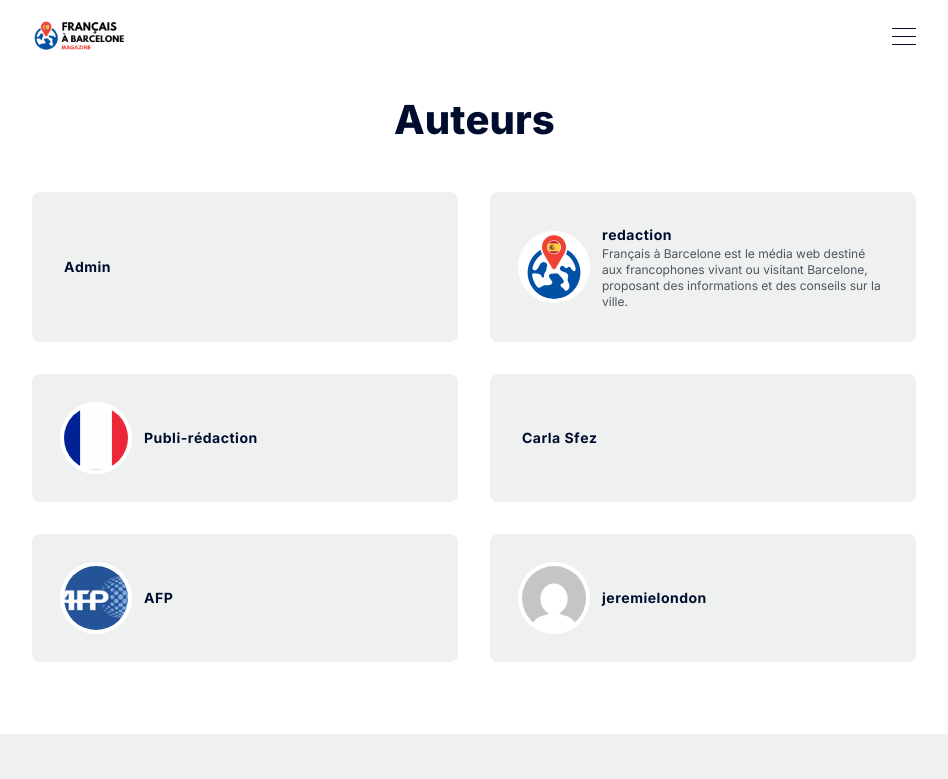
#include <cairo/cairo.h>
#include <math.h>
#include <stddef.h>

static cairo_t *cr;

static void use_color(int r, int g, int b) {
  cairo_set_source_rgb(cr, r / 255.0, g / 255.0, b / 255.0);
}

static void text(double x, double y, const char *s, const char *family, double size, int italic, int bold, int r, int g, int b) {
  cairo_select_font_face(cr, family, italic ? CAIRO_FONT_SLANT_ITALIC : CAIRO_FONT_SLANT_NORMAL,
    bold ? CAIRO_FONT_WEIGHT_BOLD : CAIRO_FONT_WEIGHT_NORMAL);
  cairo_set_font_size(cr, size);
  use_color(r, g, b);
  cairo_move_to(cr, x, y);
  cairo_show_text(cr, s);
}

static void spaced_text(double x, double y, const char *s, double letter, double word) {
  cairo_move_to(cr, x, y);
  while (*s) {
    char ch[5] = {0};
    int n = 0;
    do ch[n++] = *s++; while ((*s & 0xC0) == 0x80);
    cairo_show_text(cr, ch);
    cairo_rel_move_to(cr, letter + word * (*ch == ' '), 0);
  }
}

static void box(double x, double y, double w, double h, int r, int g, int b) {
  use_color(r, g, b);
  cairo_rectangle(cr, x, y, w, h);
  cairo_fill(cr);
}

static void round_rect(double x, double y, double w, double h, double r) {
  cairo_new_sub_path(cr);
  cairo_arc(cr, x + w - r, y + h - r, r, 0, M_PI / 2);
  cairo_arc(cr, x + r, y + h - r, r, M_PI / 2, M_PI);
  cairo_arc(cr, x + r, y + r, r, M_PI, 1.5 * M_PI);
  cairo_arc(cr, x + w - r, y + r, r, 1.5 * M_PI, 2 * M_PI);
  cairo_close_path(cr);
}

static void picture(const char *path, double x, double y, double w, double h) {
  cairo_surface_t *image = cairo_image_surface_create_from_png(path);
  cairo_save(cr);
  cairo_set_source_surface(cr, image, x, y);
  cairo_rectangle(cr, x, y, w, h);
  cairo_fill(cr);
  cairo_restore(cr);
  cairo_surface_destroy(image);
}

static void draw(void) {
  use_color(255, 255, 255);
  cairo_paint(cr);
  picture("img_01.png", 34, 21, 90, 29);
  box(892, 28, 24, 1, 0, 12, 45);
  box(892, 36, 24, 1, 0, 12, 45);
  box(892, 44, 24, 1, 0, 12, 45);
  use_color(238, 241, 240);
  round_rect(32, 192, 426, 150, 8);
  cairo_fill(cr);
  round_rect(490, 192, 426, 150, 8);
  cairo_fill(cr);
  use_color(255, 255, 255);
  cairo_arc(cr, 554, 267, 34, 0, 2 * M_PI);
  cairo_fill_preserve(cr);
  cairo_set_line_width(cr, 4);
  cairo_stroke(cr);
  picture("img_02.png", 527, 235, 54, 64);
  use_color(238, 241, 240);
  round_rect(32, 374, 426, 128, 8);
  cairo_fill(cr);
  use_color(255, 255, 255);
  cairo_arc(cr, 96, 438, 34, 0, 2 * M_PI);
  cairo_fill_preserve(cr);
  cairo_stroke(cr);
  picture("img_03.png", 64, 410, 64, 60);
  use_color(238, 241, 240);
  round_rect(490, 374, 426, 128, 8);
  cairo_fill(cr);
  round_rect(32, 534, 426, 128, 8);
  cairo_fill(cr);
  cairo_arc(cr, 96, 598, 34, 0, 2 * M_PI);
  use_color(255, 255, 255);
  cairo_stroke(cr);
  picture("img_04.png", 64, 566, 64, 64);
  use_color(238, 241, 240);
  round_rect(490, 534, 426, 128, 8);
  cairo_fill(cr);
  use_color(255, 255, 255);
  cairo_arc(cr, 554, 598, 34, 0, 2 * M_PI);
  cairo_fill_preserve(cr);
  cairo_stroke(cr);
  picture("img_05.png", 522, 566, 64, 57);
  box(0, 734, 948, 45, 238, 241, 240);
  text(394, 134, "Auteurs", "Inter ExtraBold", 40, 0, 0, 0, 12, 45);
  cairo_select_font_face(cr, "Inter", CAIRO_FONT_SLANT_NORMAL, CAIRO_FONT_WEIGHT_BOLD);
  cairo_set_font_size(cr, 14);
  spaced_text(64, 272, "Admin", 0.5, 0);
  spaced_text(602, 240, "redaction", 0.5, 0);
  text(602, 258, "Français à Barcelone est le média web destiné", "Inter", 12, 0, 0, 79, 82, 95);
  text(602, 274, "aux francophones vivant ou visitant Barcelone,", "Inter", 12, 0, 0, 79, 82, 95);
  text(602, 290, "proposant des informations et des conseils sur la", "Inter", 12, 0, 0, 79, 82, 95);
  text(602, 306, "ville.", "Inter", 12, 0, 0, 79, 82, 95);
  cairo_select_font_face(cr, "Inter", CAIRO_FONT_SLANT_NORMAL, CAIRO_FONT_WEIGHT_BOLD);
  cairo_set_font_size(cr, 14);
  use_color(0, 12, 45);
  spaced_text(144, 443, "Publi-rédaction", 0.5, 0);
  spaced_text(522, 443, "Carla Sfez", 0.5, 0);
  spaced_text(144, 603, "AFP", 0.5, 0);
  spaced_text(602, 603, "jeremielondon", 0.5, 0);
}

int main(void) {
  cairo_surface_t *surface = cairo_image_surface_create(CAIRO_FORMAT_RGB24, 948, 779);
  cr = cairo_create(surface);
  cairo_font_options_t *options = cairo_font_options_create();
  cairo_font_options_set_hint_metrics(options, CAIRO_HINT_METRICS_OFF);
  cairo_font_options_set_hint_style(options, CAIRO_HINT_STYLE_NONE);
  cairo_set_font_options(cr, options);
  cairo_set_miter_limit(cr, 4);
  draw();
  cairo_surface_write_to_png(surface, "out.png");
  cairo_font_options_destroy(options);
  cairo_destroy(cr);
  cairo_surface_destroy(surface);
  return 0;
}
